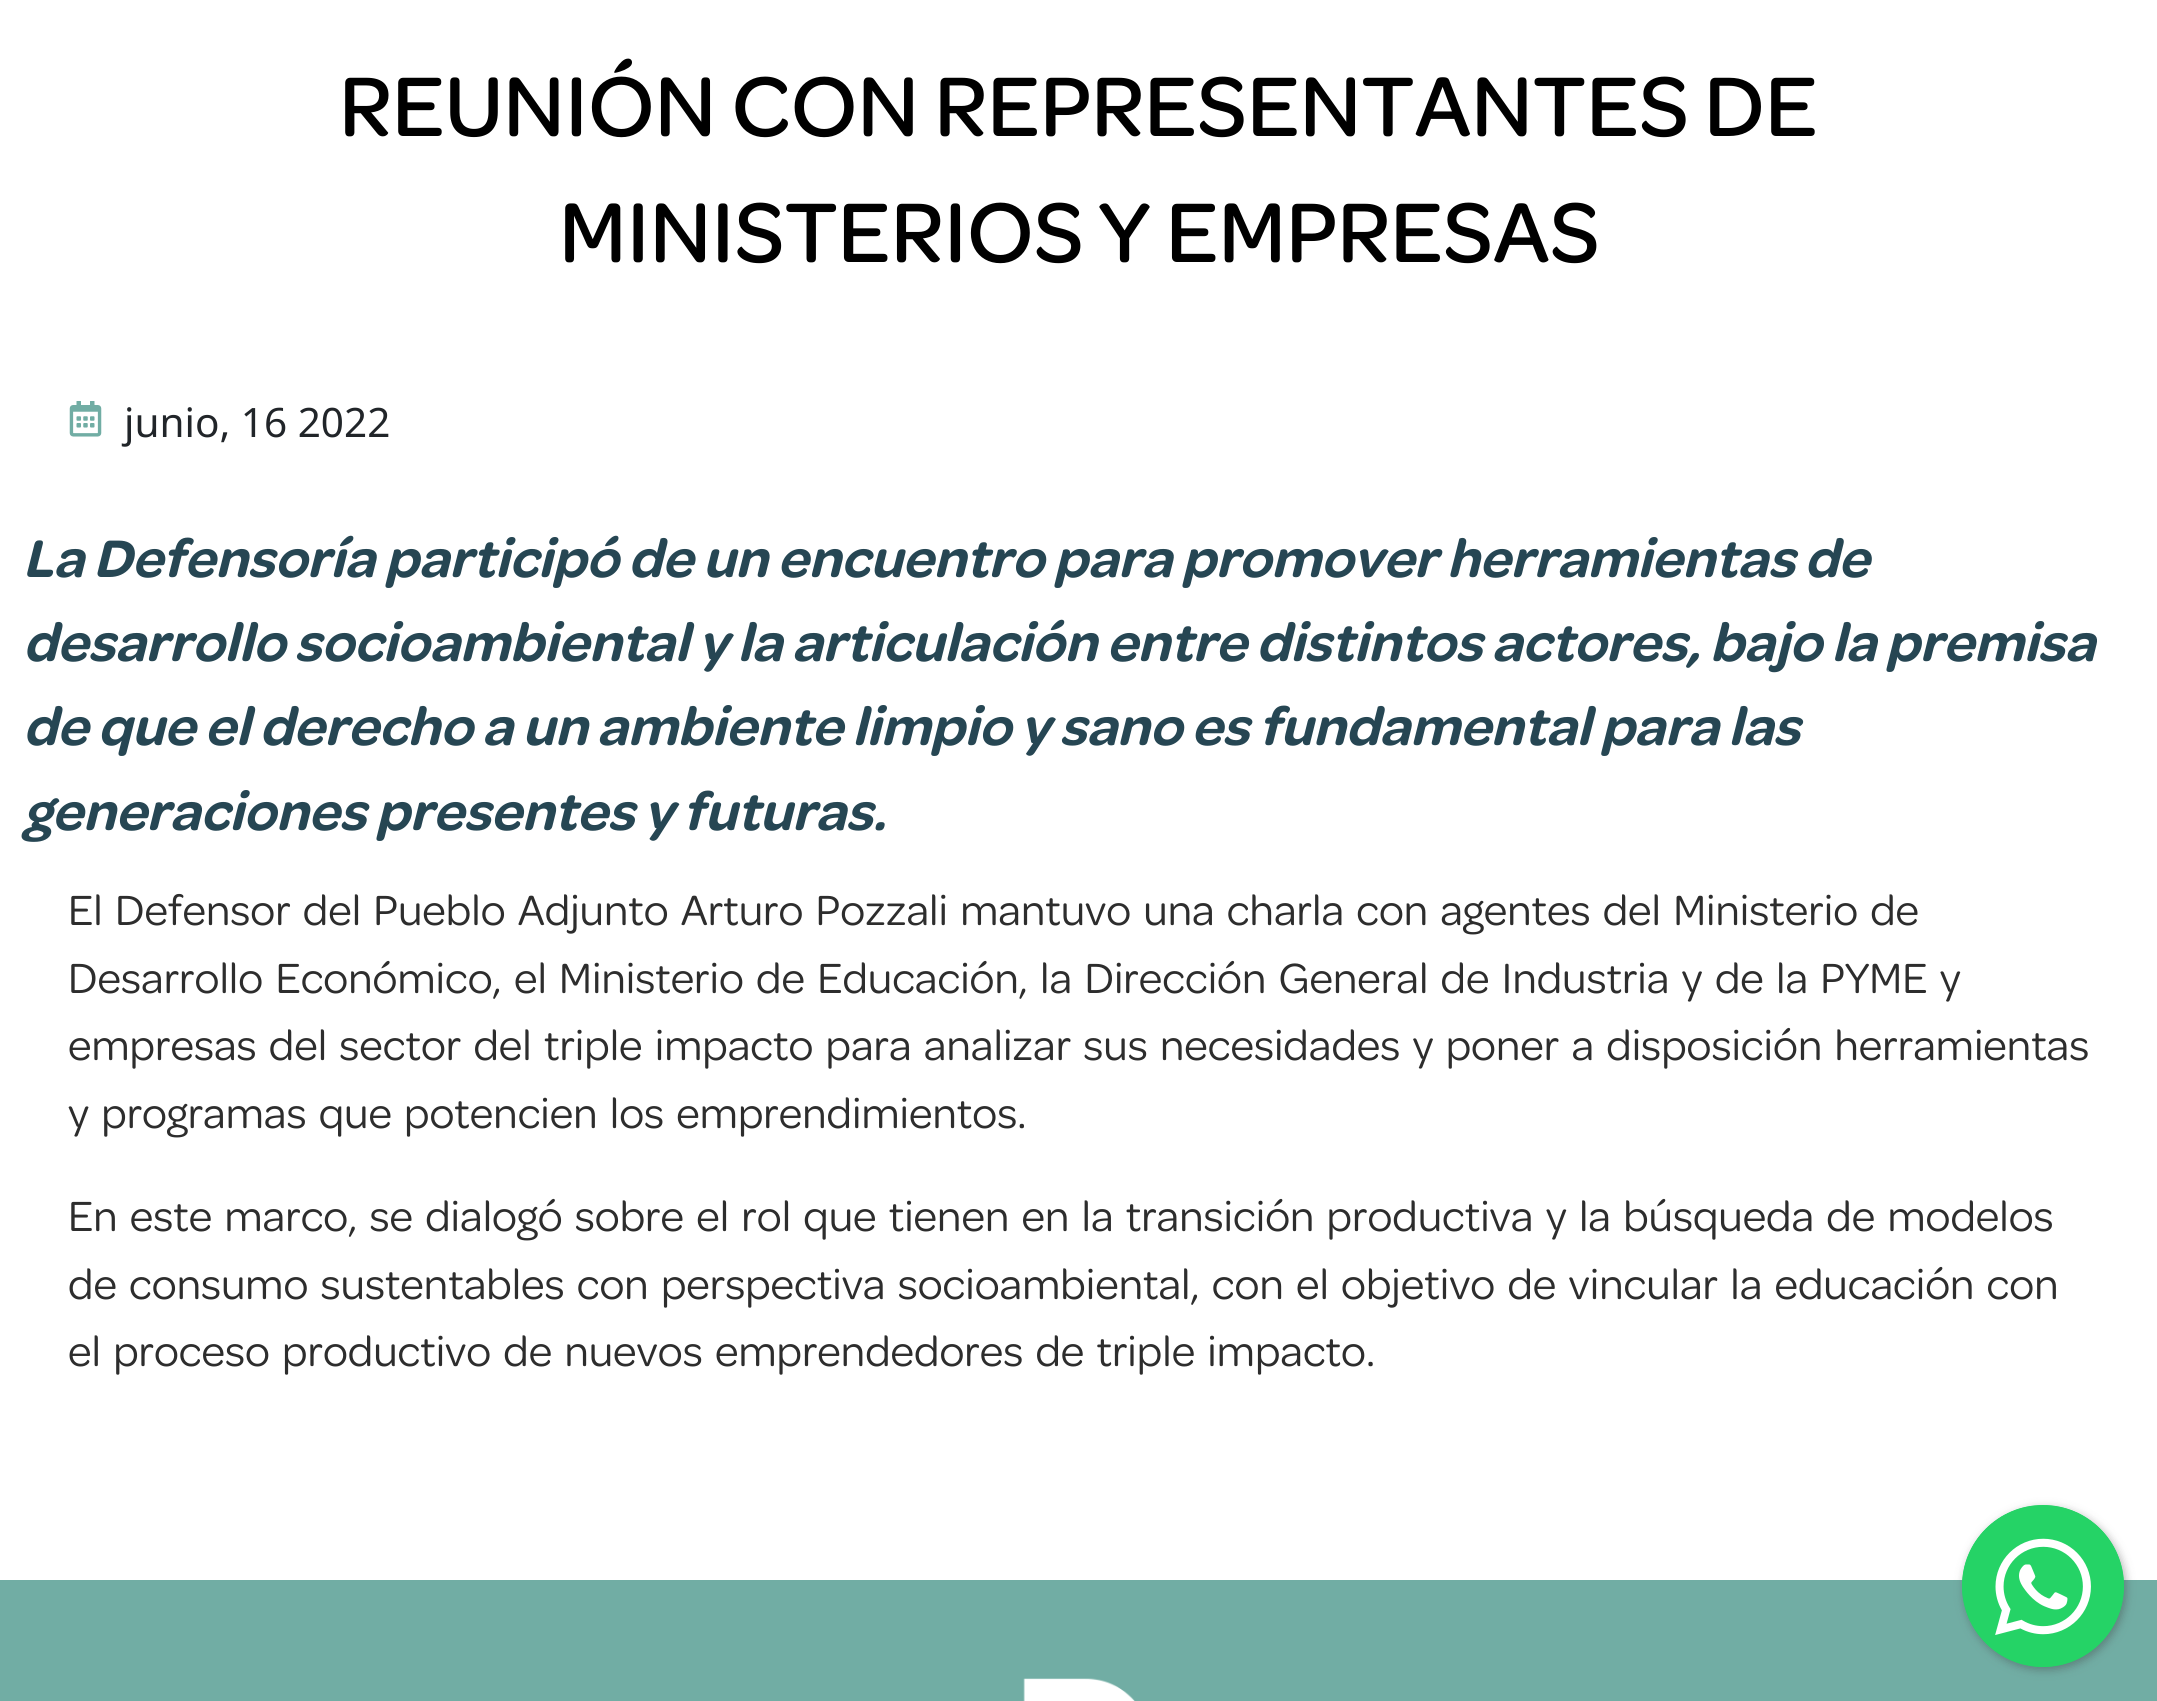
#include <cairo/cairo.h>
#include <math.h>
#include <stddef.h>

static cairo_t *cr;

static void use_color(int r, int g, int b) {
  cairo_set_source_rgb(cr, r / 255.0, g / 255.0, b / 255.0);
}

static void text(double x, double y, const char *s, const char *family, double size, int italic, int bold, int r, int g, int b) {
  cairo_select_font_face(cr, family, italic ? CAIRO_FONT_SLANT_ITALIC : CAIRO_FONT_SLANT_NORMAL,
    bold ? CAIRO_FONT_WEIGHT_BOLD : CAIRO_FONT_WEIGHT_NORMAL);
  cairo_set_font_size(cr, size);
  use_color(r, g, b);
  cairo_move_to(cr, x, y);
  cairo_show_text(cr, s);
}

static void spaced_text(double x, double y, const char *s, double letter, double word) {
  cairo_move_to(cr, x, y);
  while (*s) {
    char ch[5] = {0};
    int n = 0;
    do ch[n++] = *s++; while ((*s & 0xC0) == 0x80);
    cairo_show_text(cr, ch);
    cairo_rel_move_to(cr, letter + word * (*ch == ' '), 0);
  }
}

static void box(double x, double y, double w, double h, int r, int g, int b) {
  use_color(r, g, b);
  cairo_rectangle(cr, x, y, w, h);
  cairo_fill(cr);
}

static void round_rect(double x, double y, double w, double h, double r) {
  cairo_new_sub_path(cr);
  cairo_arc(cr, x + w - r, y + h - r, r, 0, M_PI / 2);
  cairo_arc(cr, x + r, y + h - r, r, M_PI / 2, M_PI);
  cairo_arc(cr, x + r, y + r, r, M_PI, 1.5 * M_PI);
  cairo_arc(cr, x + w - r, y + r, r, 1.5 * M_PI, 2 * M_PI);
  cairo_close_path(cr);
}

static void shadow(double x, double y, double w, double h, double r, double blur, double alpha) {
  cairo_push_group_with_content(cr, CAIRO_CONTENT_ALPHA);
  cairo_set_operator(cr, CAIRO_OPERATOR_SOURCE);
  for (int i = 15; i >= -15 && fmin(w, h) + blur * i / 3 > 0; i -= 2) {
    double e = blur * i / 6;
    cairo_set_source_rgba(cr, 0, 0, 0, alpha * erfc((i - 1) / 8.5) / 2);
    round_rect(x - e, y - e, w + 2 * e, h + 2 * e, fmax(0, fmin(r + e + blur * .6, fmin(w, h) / 2 + e)));
    cairo_fill(cr);
  }
  cairo_pattern_t *soft = cairo_pop_group(cr);
  cairo_mask(cr, soft);
  cairo_pattern_destroy(soft);
}

static void picture(const char *path, double x, double y, double w, double h) {
  cairo_surface_t *image = cairo_image_surface_create_from_png(path);
  cairo_save(cr);
  cairo_set_source_surface(cr, image, x, y);
  cairo_rectangle(cr, x, y, w, h);
  cairo_fill(cr);
  cairo_restore(cr);
  cairo_surface_destroy(image);
}

static void draw(void) {
  use_color(255, 255, 255);
  cairo_paint(cr);
  picture("img_01.png", 69, 401, 33, 36);
  box(0, 1580, 2157, 121, 113, 173, 164);
  use_color(60, 60, 60);
  shadow(1964, 1508, 162, 162, 81, 4.5, 0.4);
  use_color(37, 211, 102);
  cairo_arc(cr, 2043, 1586, 81, 0, 2 * M_PI);
  cairo_fill(cr);
  picture("img_02.png", 1962, 1505, 162, 162);
  picture("img_03.png", 1023, 1678, 112, 23);
  text(339, 136, "REUNIÓN CON REPRESENTANTES DE", "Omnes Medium", 90, 0, 0, 0, 0, 0);
  text(559, 262, "MINISTERIOS Y EMPRESAS", "Omnes Medium", 90, 0, 0, 0, 0, 0);
  text(124, 437, "junio, 16 2022", "Noto Sans", 40.5, 0, 0, 33, 37, 41);
  text(23, 577, "La Defensoría participó de un encuentro para promover herramientas de", "Omnes SemiBold", 56.25, 1, 0, 38, 70, 83);
  text(23, 661, "desarrollo socioambiental y la articulación entre distintos actores, bajo la premisa", "Omnes SemiBold", 56.25, 1, 0, 38, 70, 83);
  text(23, 745, "de que el derecho a un ambiente limpio y sano es fundamental para las", "Omnes SemiBold", 56.25, 1, 0, 38, 70, 83);
  text(23, 830, "generaciones presentes y futuras.", "Omnes SemiBold", 56.25, 1, 0, 38, 70, 83);
  cairo_select_font_face(cr, "Omnes", CAIRO_FONT_SLANT_NORMAL, CAIRO_FONT_WEIGHT_NORMAL);
  cairo_set_font_size(cr, 45);
  use_color(45, 45, 45);
  spaced_text(68, 925, "El Defensor del Pueblo Adjunto Arturo Pozzali mantuvo una charla con agentes del Ministerio de", 0, 4.5);
  spaced_text(68, 993, "Desarrollo Económico, el Ministerio de Educación, la Dirección General de Industria y de la PYME y", 0, 4.5);
  spaced_text(68, 1060, "empresas del sector del triple impacto para analizar sus necesidades y poner a disposición herramientas", 0, 4.5);
  spaced_text(68, 1128, "y programas que potencien los emprendimientos.", 0, 4.5);
  spaced_text(68, 1231, "En este marco, se dialogó sobre el rol que tienen en la transición productiva y la búsqueda de modelos", 0, 4.5);
  spaced_text(68, 1299, "de consumo sustentables con perspectiva socioambiental, con el objetivo de vincular la educación con", 0, 4.5);
  spaced_text(68, 1366, "el proceso productivo de nuevos emprendedores de triple impacto.", 0, 4.5);
}

int main(void) {
  cairo_surface_t *surface = cairo_image_surface_create(CAIRO_FORMAT_RGB24, 2157, 1701);
  cr = cairo_create(surface);
  cairo_font_options_t *options = cairo_font_options_create();
  cairo_font_options_set_hint_metrics(options, CAIRO_HINT_METRICS_OFF);
  cairo_font_options_set_hint_style(options, CAIRO_HINT_STYLE_NONE);
  cairo_set_font_options(cr, options);
  cairo_set_miter_limit(cr, 4);
  draw();
  cairo_surface_write_to_png(surface, "out.png");
  cairo_font_options_destroy(options);
  cairo_destroy(cr);
  cairo_surface_destroy(surface);
  return 0;
}
